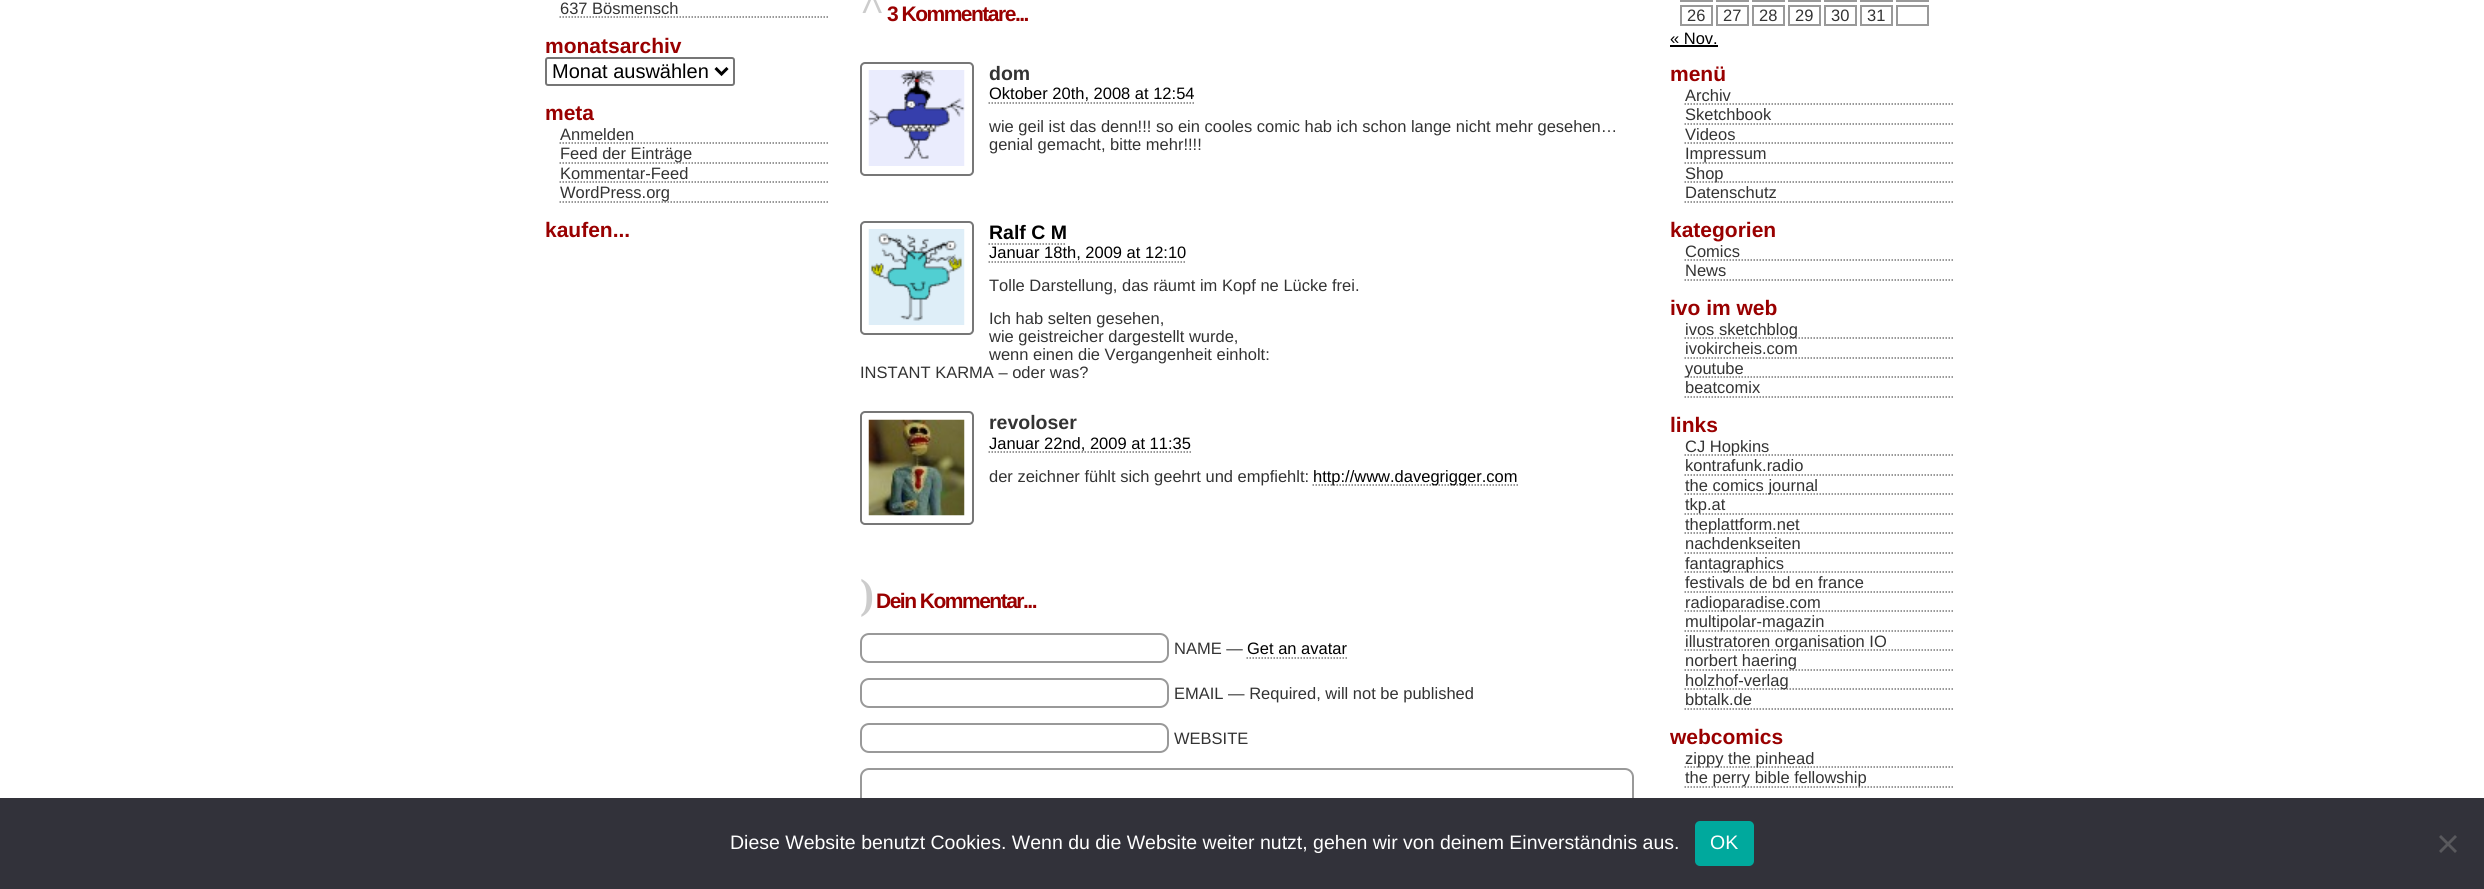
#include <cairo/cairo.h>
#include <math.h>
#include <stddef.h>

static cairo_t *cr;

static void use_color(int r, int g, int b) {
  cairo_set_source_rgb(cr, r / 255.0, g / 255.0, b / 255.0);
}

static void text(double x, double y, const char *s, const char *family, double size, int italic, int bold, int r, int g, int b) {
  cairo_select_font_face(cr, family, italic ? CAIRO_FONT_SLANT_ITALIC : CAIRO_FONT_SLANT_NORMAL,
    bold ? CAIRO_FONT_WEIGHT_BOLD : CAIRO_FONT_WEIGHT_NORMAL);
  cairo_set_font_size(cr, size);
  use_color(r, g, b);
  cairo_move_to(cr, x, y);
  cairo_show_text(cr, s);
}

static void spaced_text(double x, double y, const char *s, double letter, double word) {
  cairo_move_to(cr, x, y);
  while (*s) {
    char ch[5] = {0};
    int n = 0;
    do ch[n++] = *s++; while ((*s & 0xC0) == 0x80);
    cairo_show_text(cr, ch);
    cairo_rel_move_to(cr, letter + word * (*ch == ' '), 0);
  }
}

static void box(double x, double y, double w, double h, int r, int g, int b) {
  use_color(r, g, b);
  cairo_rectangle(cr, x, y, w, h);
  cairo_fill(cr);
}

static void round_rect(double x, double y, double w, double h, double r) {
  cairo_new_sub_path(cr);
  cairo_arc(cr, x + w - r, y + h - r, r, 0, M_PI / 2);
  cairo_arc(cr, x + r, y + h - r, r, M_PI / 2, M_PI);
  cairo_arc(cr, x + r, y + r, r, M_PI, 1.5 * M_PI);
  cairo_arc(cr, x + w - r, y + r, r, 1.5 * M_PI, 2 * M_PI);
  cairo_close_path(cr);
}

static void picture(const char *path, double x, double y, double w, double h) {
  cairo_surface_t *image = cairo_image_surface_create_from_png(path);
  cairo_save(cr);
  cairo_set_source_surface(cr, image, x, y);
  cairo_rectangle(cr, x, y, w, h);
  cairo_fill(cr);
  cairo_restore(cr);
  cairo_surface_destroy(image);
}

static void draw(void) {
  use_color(255, 255, 255);
  cairo_paint(cr);
  cairo_new_path(cr);
  cairo_move_to(cr, 559.5, 17);
  cairo_line_to(cr, 829.5, 17);
  use_color(119, 119, 119);
  cairo_set_line_width(cr, 1.5);
  cairo_set_dash(cr, (double[]){1.5, 1.5}, 2, 0);
  cairo_stroke(cr);
  round_rect(546, 58, 188, 27, 2);
  use_color(118, 118, 118);
  cairo_set_line_width(cr, 2);
  cairo_set_dash(cr, NULL, 0, 0);
  cairo_stroke(cr);
  cairo_new_path(cr);
  cairo_move_to(cr, 715.5, 68);
  cairo_line_to(cr, 721.5, 74);
  cairo_line_to(cr, 727.5, 68);
  use_color(0, 0, 0);
  cairo_set_line_width(cr, 3);
  cairo_stroke(cr);
  cairo_new_path(cr);
  cairo_move_to(cr, 559.5, 143);
  cairo_line_to(cr, 829.5, 143);
  use_color(119, 119, 119);
  cairo_set_line_width(cr, 1.5);
  cairo_set_dash(cr, (double[]){1.5, 1.5}, 2, 0);
  cairo_stroke(cr);
  cairo_new_path(cr);
  cairo_move_to(cr, 559.5, 163);
  cairo_line_to(cr, 829.5, 163);
  cairo_stroke(cr);
  cairo_new_path(cr);
  cairo_move_to(cr, 559.5, 182);
  cairo_line_to(cr, 829.5, 182);
  cairo_stroke(cr);
  cairo_new_path(cr);
  cairo_move_to(cr, 559.5, 202);
  cairo_line_to(cr, 829.5, 202);
  cairo_stroke(cr);
  round_rect(861, 63, 112, 112, 4);
  cairo_set_line_width(cr, 2);
  cairo_set_dash(cr, NULL, 0, 0);
  cairo_stroke(cr);
  picture("img_01.png", 868, 70, 97, 96);
  cairo_new_path(cr);
  cairo_move_to(cr, 988.5, 103);
  cairo_line_to(cr, 1194, 103);
  cairo_set_line_width(cr, 1.5);
  cairo_set_dash(cr, (double[]){1.5, 1.5}, 2, 0);
  cairo_stroke(cr);
  round_rect(861, 222, 112, 112, 4);
  cairo_set_line_width(cr, 2);
  cairo_set_dash(cr, NULL, 0, 0);
  cairo_stroke(cr);
  picture("img_02.png", 868, 229, 97, 96);
  cairo_new_path(cr);
  cairo_move_to(cr, 988.5, 244);
  cairo_line_to(cr, 1066.5, 244);
  cairo_set_line_width(cr, 1.5);
  cairo_set_dash(cr, (double[]){1.5, 1.5}, 2, 0);
  cairo_stroke(cr);
  cairo_new_path(cr);
  cairo_move_to(cr, 988.5, 262);
  cairo_line_to(cr, 1186.5, 262);
  cairo_stroke(cr);
  round_rect(861, 412, 112, 112, 4);
  cairo_set_line_width(cr, 2);
  cairo_set_dash(cr, NULL, 0, 0);
  cairo_stroke(cr);
  picture("img_03.png", 868, 419, 97, 97);
  cairo_new_path(cr);
  cairo_move_to(cr, 988.5, 452);
  cairo_line_to(cr, 1191, 452);
  cairo_set_line_width(cr, 1.5);
  cairo_set_dash(cr, (double[]){1.5, 1.5}, 2, 0);
  cairo_stroke(cr);
  cairo_new_path(cr);
  cairo_move_to(cr, 1312.5, 485);
  cairo_line_to(cr, 1518, 485);
  cairo_stroke(cr);
  round_rect(861, 634, 307, 28, 8);
  use_color(153, 153, 153);
  cairo_set_line_width(cr, 2);
  cairo_set_dash(cr, NULL, 0, 0);
  cairo_stroke(cr);
  cairo_new_path(cr);
  cairo_move_to(cr, 1246.5, 658);
  cairo_line_to(cr, 1347, 658);
  use_color(119, 119, 119);
  cairo_set_line_width(cr, 1.5);
  cairo_set_dash(cr, (double[]){1.5, 1.5}, 2, 0);
  cairo_stroke(cr);
  round_rect(861, 679, 307, 28, 8);
  use_color(153, 153, 153);
  cairo_set_line_width(cr, 2);
  cairo_set_dash(cr, NULL, 0, 0);
  cairo_stroke(cr);
  round_rect(861, 724, 307, 28, 8);
  cairo_stroke(cr);
  round_rect(861, 769, 772, 112, 8);
  cairo_stroke(cr);
  cairo_rectangle(cr, 1681, -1, 31, 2);
  cairo_stroke(cr);
  cairo_rectangle(cr, 1717, -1, 31, 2);
  cairo_stroke(cr);
  cairo_rectangle(cr, 1753, -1, 31, 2);
  cairo_stroke(cr);
  cairo_rectangle(cr, 1789, -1, 31, 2);
  cairo_stroke(cr);
  cairo_rectangle(cr, 1825, -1, 31, 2);
  cairo_stroke(cr);
  cairo_rectangle(cr, 1861, -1, 31, 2);
  cairo_stroke(cr);
  cairo_rectangle(cr, 1897, -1, 31, 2);
  cairo_stroke(cr);
  cairo_rectangle(cr, 1681, 6, 31, 19);
  cairo_stroke(cr);
  cairo_rectangle(cr, 1717, 6, 31, 19);
  cairo_stroke(cr);
  cairo_rectangle(cr, 1753, 6, 31, 19);
  cairo_stroke(cr);
  cairo_rectangle(cr, 1789, 6, 31, 19);
  cairo_stroke(cr);
  cairo_rectangle(cr, 1825, 6, 31, 19);
  cairo_stroke(cr);
  cairo_rectangle(cr, 1861, 6, 31, 19);
  cairo_stroke(cr);
  cairo_rectangle(cr, 1897, 6, 31, 19);
  cairo_stroke(cr);
  box(1670, 45, 48, 2, 0, 0, 0);
  cairo_new_path(cr);
  cairo_move_to(cr, 1684.5, 104);
  cairo_line_to(cr, 1954.5, 104);
  use_color(119, 119, 119);
  cairo_set_line_width(cr, 1.5);
  cairo_set_dash(cr, (double[]){1.5, 1.5}, 2, 0);
  cairo_stroke(cr);
  cairo_new_path(cr);
  cairo_move_to(cr, 1684.5, 124);
  cairo_line_to(cr, 1954.5, 124);
  cairo_stroke(cr);
  cairo_new_path(cr);
  cairo_move_to(cr, 1684.5, 143);
  cairo_line_to(cr, 1954.5, 143);
  cairo_stroke(cr);
  cairo_new_path(cr);
  cairo_move_to(cr, 1684.5, 163);
  cairo_line_to(cr, 1954.5, 163);
  cairo_stroke(cr);
  cairo_new_path(cr);
  cairo_move_to(cr, 1684.5, 182);
  cairo_line_to(cr, 1954.5, 182);
  cairo_stroke(cr);
  cairo_new_path(cr);
  cairo_move_to(cr, 1684.5, 202);
  cairo_line_to(cr, 1954.5, 202);
  cairo_stroke(cr);
  cairo_new_path(cr);
  cairo_move_to(cr, 1684.5, 260);
  cairo_line_to(cr, 1954.5, 260);
  cairo_stroke(cr);
  cairo_new_path(cr);
  cairo_move_to(cr, 1684.5, 280);
  cairo_line_to(cr, 1954.5, 280);
  cairo_stroke(cr);
  cairo_new_path(cr);
  cairo_move_to(cr, 1684.5, 338);
  cairo_line_to(cr, 1954.5, 338);
  cairo_stroke(cr);
  cairo_new_path(cr);
  cairo_move_to(cr, 1684.5, 358);
  cairo_line_to(cr, 1954.5, 358);
  cairo_stroke(cr);
  cairo_new_path(cr);
  cairo_move_to(cr, 1684.5, 377);
  cairo_line_to(cr, 1954.5, 377);
  cairo_stroke(cr);
  cairo_new_path(cr);
  cairo_move_to(cr, 1684.5, 397);
  cairo_line_to(cr, 1954.5, 397);
  cairo_stroke(cr);
  cairo_new_path(cr);
  cairo_move_to(cr, 1684.5, 455);
  cairo_line_to(cr, 1954.5, 455);
  cairo_stroke(cr);
  cairo_new_path(cr);
  cairo_move_to(cr, 1684.5, 475);
  cairo_line_to(cr, 1954.5, 475);
  cairo_stroke(cr);
  cairo_new_path(cr);
  cairo_move_to(cr, 1684.5, 494);
  cairo_line_to(cr, 1954.5, 494);
  cairo_stroke(cr);
  cairo_new_path(cr);
  cairo_move_to(cr, 1684.5, 514);
  cairo_line_to(cr, 1954.5, 514);
  cairo_stroke(cr);
  cairo_new_path(cr);
  cairo_move_to(cr, 1684.5, 533);
  cairo_line_to(cr, 1954.5, 533);
  cairo_stroke(cr);
  cairo_new_path(cr);
  cairo_move_to(cr, 1684.5, 553);
  cairo_line_to(cr, 1954.5, 553);
  cairo_stroke(cr);
  cairo_new_path(cr);
  cairo_move_to(cr, 1684.5, 572);
  cairo_line_to(cr, 1954.5, 572);
  cairo_stroke(cr);
  cairo_new_path(cr);
  cairo_move_to(cr, 1684.5, 592);
  cairo_line_to(cr, 1954.5, 592);
  cairo_stroke(cr);
  cairo_new_path(cr);
  cairo_move_to(cr, 1684.5, 611);
  cairo_line_to(cr, 1954.5, 611);
  cairo_stroke(cr);
  cairo_new_path(cr);
  cairo_move_to(cr, 1684.5, 631);
  cairo_line_to(cr, 1954.5, 631);
  cairo_stroke(cr);
  cairo_new_path(cr);
  cairo_move_to(cr, 1684.5, 650);
  cairo_line_to(cr, 1954.5, 650);
  cairo_stroke(cr);
  cairo_new_path(cr);
  cairo_move_to(cr, 1684.5, 670);
  cairo_line_to(cr, 1954.5, 670);
  cairo_stroke(cr);
  cairo_new_path(cr);
  cairo_move_to(cr, 1684.5, 689);
  cairo_line_to(cr, 1954.5, 689);
  cairo_stroke(cr);
  cairo_new_path(cr);
  cairo_move_to(cr, 1684.5, 709);
  cairo_line_to(cr, 1954.5, 709);
  cairo_stroke(cr);
  cairo_new_path(cr);
  cairo_move_to(cr, 1684.5, 767);
  cairo_line_to(cr, 1954.5, 767);
  cairo_stroke(cr);
  cairo_new_path(cr);
  cairo_move_to(cr, 1684.5, 787);
  cairo_line_to(cr, 1954.5, 787);
  cairo_stroke(cr);
  box(0, 798, 2484, 91, 50, 50, 58);
  use_color(0, 169, 157);
  round_rect(1695, 821, 59, 45, 5);
  cairo_fill(cr);
  use_color(89, 89, 93);
  cairo_new_path(cr);
  cairo_move_to(cr, 2455, 835);
  cairo_line_to(cr, 2457, 837);
  cairo_line_to(cr, 2441, 853);
  cairo_line_to(cr, 2439, 851);
  cairo_close_path(cr);
  cairo_fill(cr);
  cairo_new_path(cr);
  cairo_move_to(cr, 2439, 837);
  cairo_line_to(cr, 2441, 835);
  cairo_line_to(cr, 2457, 851);
  cairo_line_to(cr, 2455, 853);
  cairo_close_path(cr);
  cairo_fill(cr);
  text(560, 14, "637 Bösmensch", "Liberation Sans", 16.5, 0, 0, 51, 51, 51);
  text(545, 53, "monatsarchiv", "Liberation Sans", 21, 0, 1, 153, 0, 0);
  text(552, 78, "Monat auswählen", "Liberation Sans", 20, 0, 0, 0, 0, 0);
  text(545, 120, "meta", "Liberation Sans", 21, 0, 1, 153, 0, 0);
  text(560, 140, "Anmelden", "Liberation Sans", 16.5, 0, 0, 51, 51, 51);
  text(560, 159, "Feed der Einträge", "Liberation Sans", 16.5, 0, 0, 51, 51, 51);
  text(560, 179, "Kommentar-Feed", "Liberation Sans", 16.5, 0, 0, 51, 51, 51);
  text(560, 198, "WordPress.org", "Liberation Sans", 16.5, 0, 0, 51, 51, 51);
  text(545, 237, "kaufen...", "Liberation Sans", 21, 0, 1, 153, 0, 0);
  cairo_select_font_face(cr, "Liberation Serif", CAIRO_FONT_SLANT_NORMAL, CAIRO_FONT_WEIGHT_BOLD);
  cairo_set_font_size(cr, 42);
  use_color(204, 204, 204);
  spaced_text(860, 21, "^", -1.5, 0);
  cairo_select_font_face(cr, "Liberation Sans", CAIRO_FONT_SLANT_NORMAL, CAIRO_FONT_WEIGHT_BOLD);
  cairo_set_font_size(cr, 21);
  use_color(153, 0, 0);
  spaced_text(887, 21, "3 Kommentare...", -1.5, 0);
  text(989, 80, "dom", "Liberation Sans", 19.5, 0, 1, 51, 51, 51);
  text(989, 99, "Oktober 20th, 2008 at 12:54", "Liberation Sans", 16.5, 0, 0, 0, 0, 0);
  text(989, 132, "wie geil ist das denn!!! so ein cooles comic hab ich schon lange nicht mehr gesehen…", "Liberation Sans", 16.5, 0, 0, 51, 51, 51);
  text(989, 150, "genial gemacht, bitte mehr!!!!", "Liberation Sans", 16.5, 0, 0, 51, 51, 51);
  text(989, 239, "Ralf C M", "Liberation Sans", 19.5, 0, 1, 0, 0, 0);
  text(989, 258, "Januar 18th, 2009 at 12:10", "Liberation Sans", 16.5, 0, 0, 0, 0, 0);
  text(989, 291, "Tolle Darstellung, das räumt im Kopf ne Lücke frei.", "Liberation Sans", 16.5, 0, 0, 51, 51, 51);
  text(989, 324, "Ich hab selten gesehen,", "Liberation Sans", 16.5, 0, 0, 51, 51, 51);
  text(989, 342, "wie geistreicher dargestellt wurde,", "Liberation Sans", 16.5, 0, 0, 51, 51, 51);
  text(989, 360, "wenn einen die Vergangenheit einholt:", "Liberation Sans", 16.5, 0, 0, 51, 51, 51);
  text(860, 378, "INSTANT KARMA – oder was?", "Liberation Sans", 16.5, 0, 0, 51, 51, 51);
  text(989, 429, "revoloser", "Liberation Sans", 19.5, 0, 1, 51, 51, 51);
  text(989, 449, "Januar 22nd, 2009 at 11:35", "Liberation Sans", 16.5, 0, 0, 0, 0, 0);
  text(989, 482, "der zeichner fühlt sich geehrt und empfiehlt:", "Liberation Sans", 16.5, 0, 0, 51, 51, 51);
  text(1313, 482, "http://www.davegrigger.com", "Liberation Sans", 16.5, 0, 0, 0, 0, 0);
  cairo_select_font_face(cr, "Liberation Serif", CAIRO_FONT_SLANT_NORMAL, CAIRO_FONT_WEIGHT_BOLD);
  cairo_set_font_size(cr, 42);
  use_color(204, 204, 204);
  spaced_text(860, 608, ")", -1.5, 0);
  cairo_select_font_face(cr, "Liberation Sans", CAIRO_FONT_SLANT_NORMAL, CAIRO_FONT_WEIGHT_BOLD);
  cairo_set_font_size(cr, 21);
  use_color(153, 0, 0);
  spaced_text(876, 608, "Dein Kommentar...", -1.5, 0);
  text(1174, 654, "NAME —", "Liberation Sans", 16.5, 0, 0, 51, 51, 51);
  text(1247, 654, "Get an avatar", "Liberation Sans", 16.5, 0, 0, 0, 0, 0);
  text(1174, 699, "EMAIL — Required, will not be published", "Liberation Sans", 16.5, 0, 0, 51, 51, 51);
  text(1174, 744, "WEBSITE", "Liberation Sans", 16.5, 0, 0, 51, 51, 51);
  text(1687, 21, "26", "Liberation Sans", 16.5, 0, 0, 51, 51, 51);
  text(1723, 21, "27", "Liberation Sans", 16.5, 0, 0, 51, 51, 51);
  text(1759, 21, "28", "Liberation Sans", 16.5, 0, 0, 51, 51, 51);
  text(1795, 21, "29", "Liberation Sans", 16.5, 0, 0, 51, 51, 51);
  text(1831, 21, "30", "Liberation Sans", 16.5, 0, 0, 51, 51, 51);
  text(1867, 21, "31", "Liberation Sans", 16.5, 0, 0, 51, 51, 51);
  text(1670, 44, "« Nov.", "Liberation Sans", 16.5, 0, 0, 0, 0, 0);
  text(1670, 81, "menü", "Liberation Sans", 21, 0, 1, 153, 0, 0);
  text(1685, 101, "Archiv", "Liberation Sans", 16.5, 0, 0, 51, 51, 51);
  text(1685, 120, "Sketchbook", "Liberation Sans", 16.5, 0, 0, 51, 51, 51);
  text(1685, 140, "Videos", "Liberation Sans", 16.5, 0, 0, 51, 51, 51);
  text(1685, 159, "Impressum", "Liberation Sans", 16.5, 0, 0, 51, 51, 51);
  text(1685, 179, "Shop", "Liberation Sans", 16.5, 0, 0, 51, 51, 51);
  text(1685, 198, "Datenschutz", "Liberation Sans", 16.5, 0, 0, 51, 51, 51);
  text(1670, 237, "kategorien", "Liberation Sans", 21, 0, 1, 153, 0, 0);
  text(1685, 257, "Comics", "Liberation Sans", 16.5, 0, 0, 51, 51, 51);
  text(1685, 276, "News", "Liberation Sans", 16.5, 0, 0, 51, 51, 51);
  text(1670, 315, "ivo im web", "Liberation Sans", 21, 0, 1, 153, 0, 0);
  text(1685, 335, "ivos sketchblog", "Liberation Sans", 16.5, 0, 0, 51, 51, 51);
  text(1685, 354, "ivokircheis.com", "Liberation Sans", 16.5, 0, 0, 51, 51, 51);
  text(1685, 374, "youtube", "Liberation Sans", 16.5, 0, 0, 51, 51, 51);
  text(1685, 393, "beatcomix", "Liberation Sans", 16.5, 0, 0, 51, 51, 51);
  text(1670, 432, "links", "Liberation Sans", 21, 0, 1, 153, 0, 0);
  text(1685, 452, "CJ Hopkins", "Liberation Sans", 16.5, 0, 0, 51, 51, 51);
  text(1685, 471, "kontrafunk.radio", "Liberation Sans", 16.5, 0, 0, 51, 51, 51);
  text(1685, 491, "the comics journal", "Liberation Sans", 16.5, 0, 0, 51, 51, 51);
  text(1685, 510, "tkp.at", "Liberation Sans", 16.5, 0, 0, 51, 51, 51);
  text(1685, 530, "theplattform.net", "Liberation Sans", 16.5, 0, 0, 51, 51, 51);
  text(1685, 549, "nachdenkseiten", "Liberation Sans", 16.5, 0, 0, 51, 51, 51);
  text(1685, 569, "fantagraphics", "Liberation Sans", 16.5, 0, 0, 51, 51, 51);
  text(1685, 588, "festivals de bd en france", "Liberation Sans", 16.5, 0, 0, 51, 51, 51);
  text(1685, 608, "radioparadise.com", "Liberation Sans", 16.5, 0, 0, 51, 51, 51);
  text(1685, 627, "multipolar-magazin", "Liberation Sans", 16.5, 0, 0, 51, 51, 51);
  text(1685, 647, "illustratoren organisation IO", "Liberation Sans", 16.5, 0, 0, 51, 51, 51);
  text(1685, 666, "norbert haering", "Liberation Sans", 16.5, 0, 0, 51, 51, 51);
  text(1685, 686, "holzhof-verlag", "Liberation Sans", 16.5, 0, 0, 51, 51, 51);
  text(1685, 705, "bbtalk.de", "Liberation Sans", 16.5, 0, 0, 51, 51, 51);
  text(1670, 744, "webcomics", "Liberation Sans", 21, 0, 1, 153, 0, 0);
  text(1685, 764, "zippy the pinhead", "Liberation Sans", 16.5, 0, 0, 51, 51, 51);
  text(1685, 783, "the perry bible fellowship", "Liberation Sans", 16.5, 0, 0, 51, 51, 51);
  text(730, 849, "Diese Website benutzt Cookies. Wenn du die Website weiter nutzt, gehen wir von deinem Einverständnis aus.", "Liberation Sans", 19.5, 0, 0, 255, 255, 255);
  text(1710, 849, "OK", "Liberation Sans", 19.5, 0, 0, 255, 255, 255);
}

int main(void) {
  cairo_surface_t *surface = cairo_image_surface_create(CAIRO_FORMAT_RGB24, 2484, 889);
  cr = cairo_create(surface);
  cairo_font_options_t *options = cairo_font_options_create();
  cairo_font_options_set_hint_metrics(options, CAIRO_HINT_METRICS_OFF);
  cairo_font_options_set_hint_style(options, CAIRO_HINT_STYLE_NONE);
  cairo_set_font_options(cr, options);
  cairo_set_miter_limit(cr, 4);
  draw();
  cairo_surface_write_to_png(surface, "out.png");
  cairo_font_options_destroy(options);
  cairo_destroy(cr);
  cairo_surface_destroy(surface);
  return 0;
}
